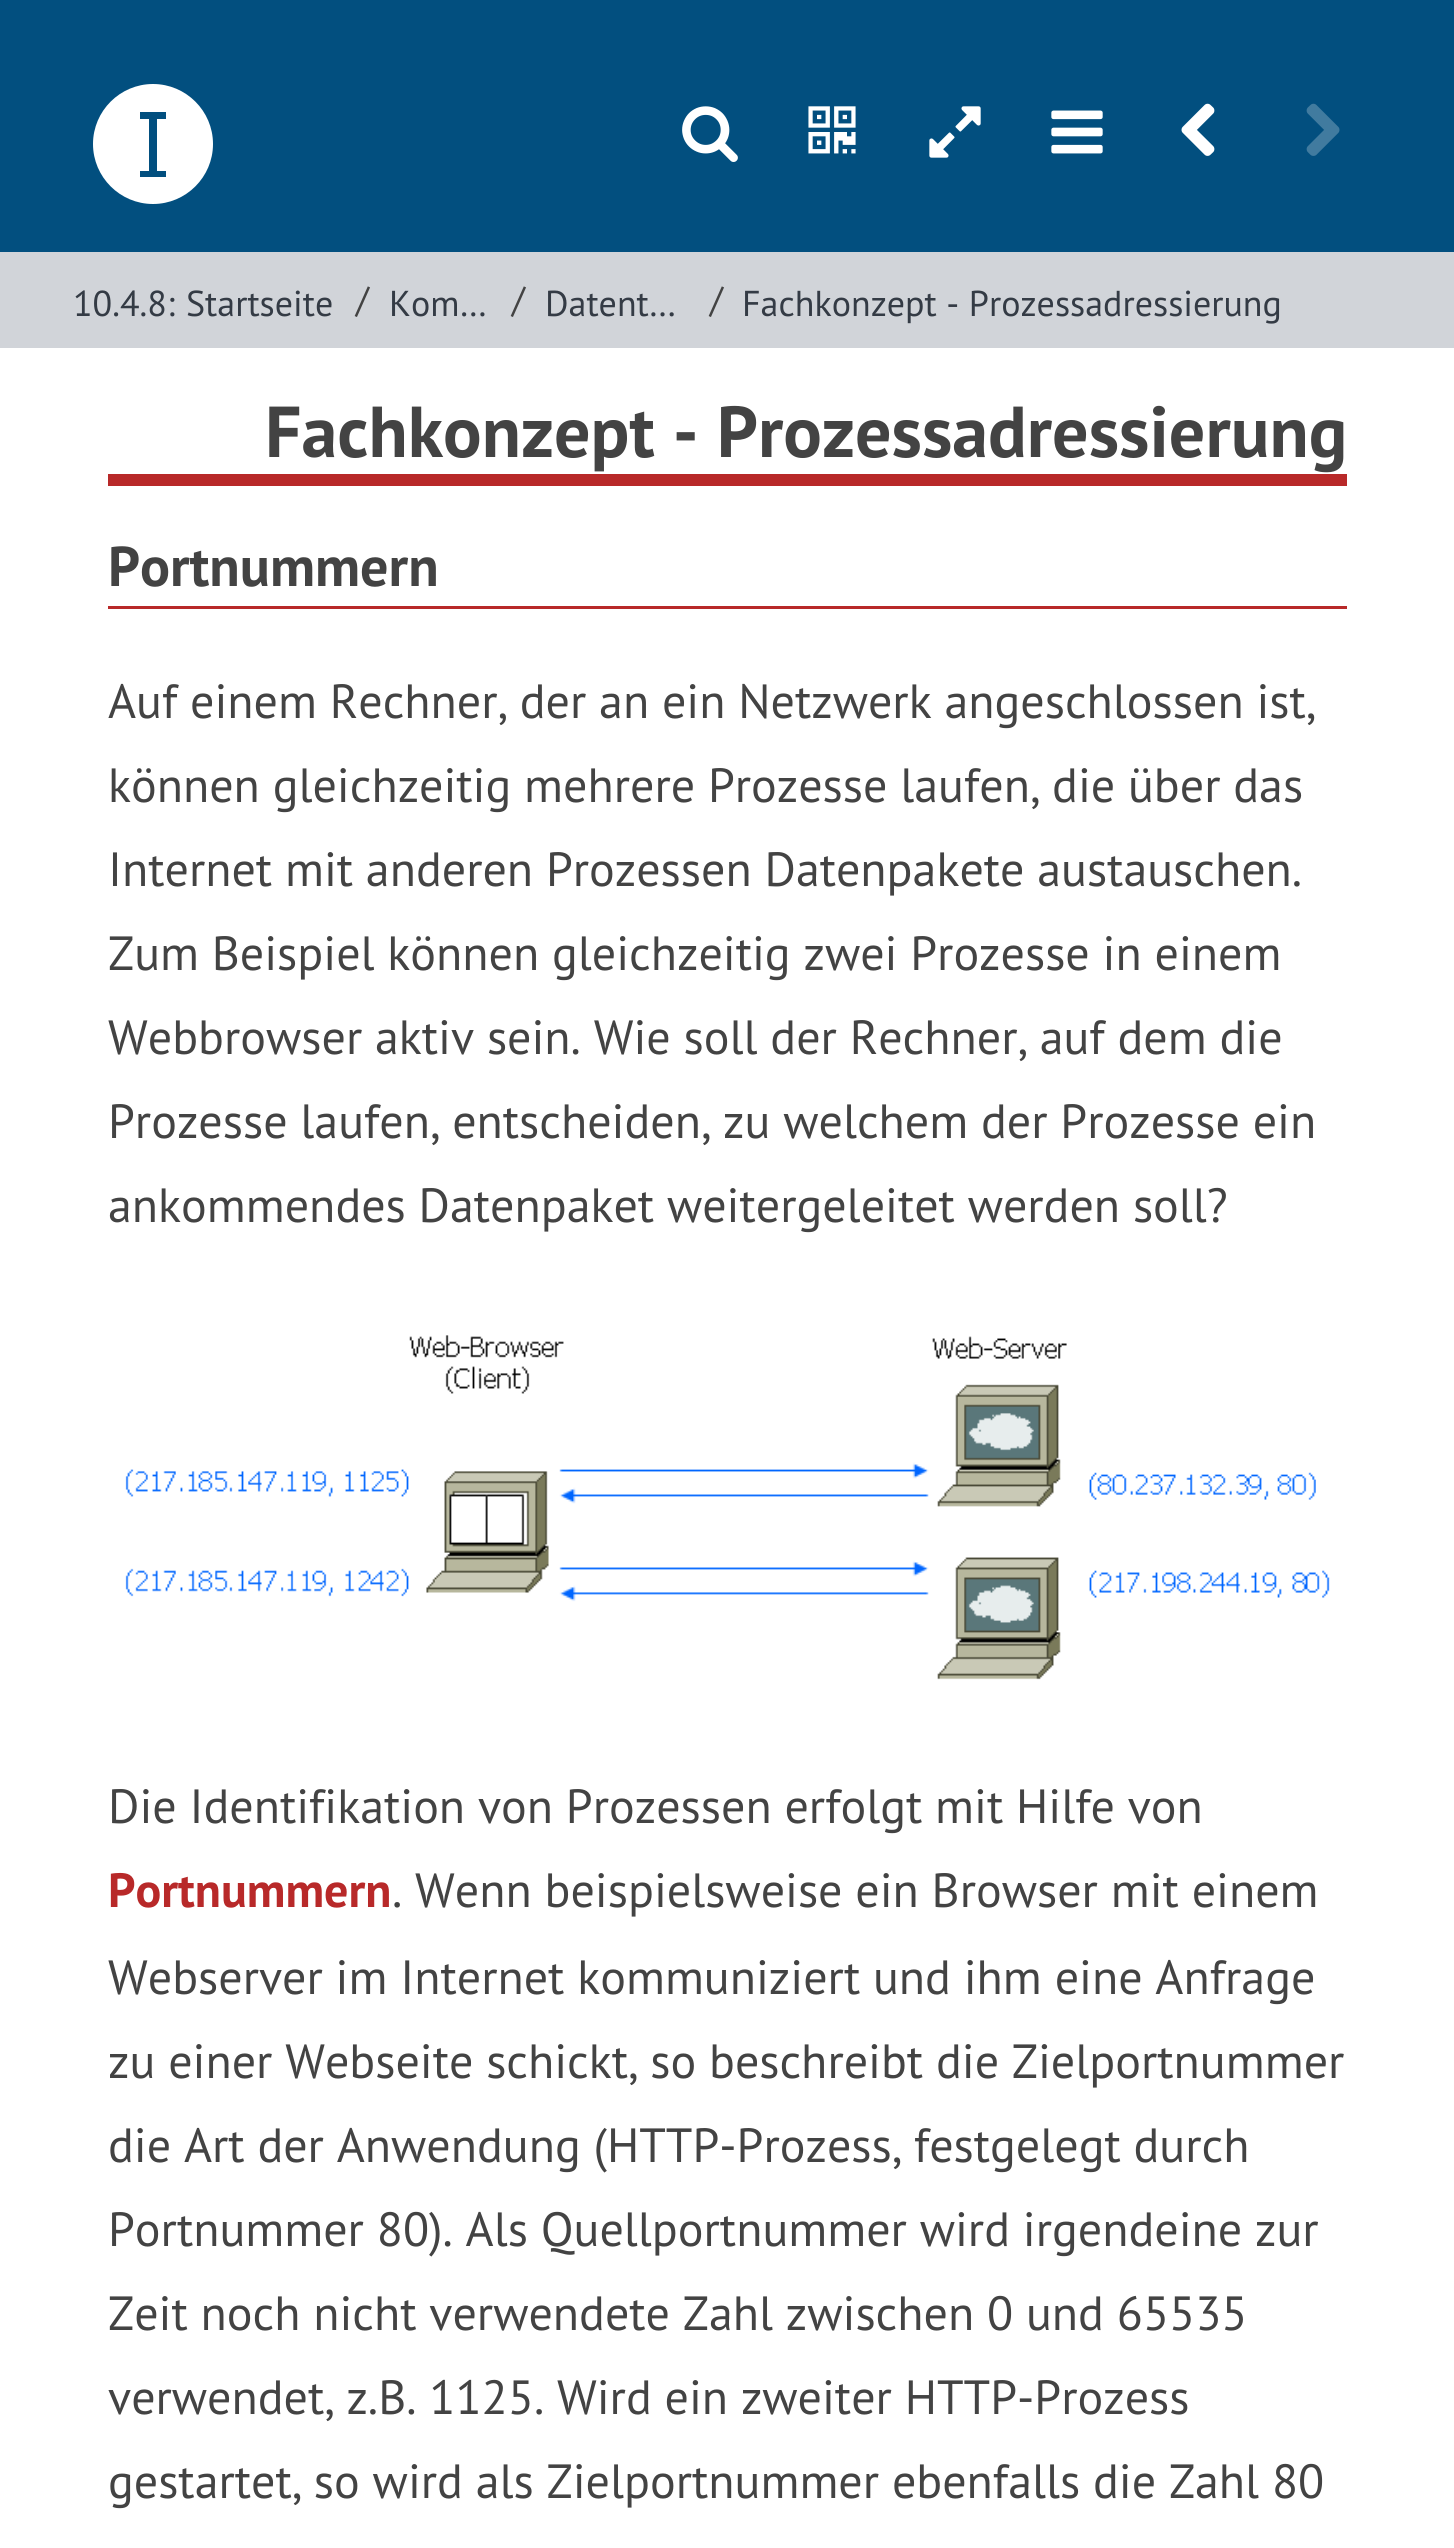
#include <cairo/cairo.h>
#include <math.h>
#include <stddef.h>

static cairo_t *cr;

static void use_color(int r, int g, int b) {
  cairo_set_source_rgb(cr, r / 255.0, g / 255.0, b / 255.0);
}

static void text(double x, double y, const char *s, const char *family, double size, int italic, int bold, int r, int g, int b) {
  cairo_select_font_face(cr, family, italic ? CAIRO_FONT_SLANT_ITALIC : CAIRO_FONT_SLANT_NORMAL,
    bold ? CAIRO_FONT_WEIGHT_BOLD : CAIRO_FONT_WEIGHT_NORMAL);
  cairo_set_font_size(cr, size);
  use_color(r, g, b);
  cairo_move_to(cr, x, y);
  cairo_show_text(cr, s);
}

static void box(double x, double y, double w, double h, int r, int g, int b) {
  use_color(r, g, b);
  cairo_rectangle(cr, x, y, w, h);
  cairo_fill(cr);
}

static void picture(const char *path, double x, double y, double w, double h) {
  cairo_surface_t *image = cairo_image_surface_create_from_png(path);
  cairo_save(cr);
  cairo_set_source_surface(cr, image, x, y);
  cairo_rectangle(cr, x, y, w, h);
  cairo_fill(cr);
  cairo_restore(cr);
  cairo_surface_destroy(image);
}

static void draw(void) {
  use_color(2, 79, 127);
  cairo_paint(cr);
  use_color(255, 255, 255);
  cairo_new_path(cr);
  cairo_move_to(cr, 166, 119);
  cairo_line_to(cr, 157, 119);
  cairo_line_to(cr, 157, 171);
  cairo_line_to(cr, 166, 171);
  cairo_line_to(cr, 166, 177);
  cairo_line_to(cr, 140, 177);
  cairo_line_to(cr, 140, 171);
  cairo_line_to(cr, 149, 171);
  cairo_line_to(cr, 149, 119);
  cairo_line_to(cr, 140, 119);
  cairo_line_to(cr, 140, 112);
  cairo_line_to(cr, 166, 112);
  cairo_close_path(cr);
  cairo_move_to(cr, 153, 84);
  cairo_curve_to(cr, 120, 84, 93, 111, 93, 144);
  cairo_curve_to(cr, 93, 177, 120, 204, 153, 204);
  cairo_curve_to(cr, 186, 204, 213, 177, 213, 144);
  cairo_curve_to(cr, 213, 111, 186, 84, 153, 84);
  cairo_fill(cr);
  box(0, 252, 1454, 96, 209, 212, 217);
  box(0, 348, 1454, 2200, 255, 255, 255);
  box(108, 474, 1239, 12, 184, 41, 41);
  box(108, 606, 1239, 3, 184, 41, 41);
  picture("img_01.png", 125, 1335, 1205, 345);
  text(680, 162, "s", "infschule", 60, 0, 0, 255, 255, 255);
  text(802, 162, "n", "infschule", 60, 0, 0, 255, 255, 255);
  text(925, 162, "h", "infschule", 60, 0, 0, 255, 255, 255);
  text(1047, 162, "m", "infschule", 60, 0, 0, 255, 255, 255);
  text(1169, 162, "r", "infschule", 60, 0, 0, 255, 255, 255);
  text(1292, 162, "u", "infschule", 60, 0, 0, 65, 123, 159);
  text(73, 316, "10.4.8:", "PT Sans", 36, 0, 0, 52, 59, 69);
  text(186, 316, "Startseite", "PT Sans", 36, 0, 0, 52, 59, 69);
  text(356, 312, "/", "PT Sans", 36, 0, 0, 67, 67, 67);
  text(389, 316, "Kom…", "PT Sans", 36, 0, 0, 52, 59, 69);
  text(512, 312, "/", "PT Sans", 36, 0, 0, 67, 67, 67);
  text(545, 316, "Datent…", "PT Sans", 36, 0, 0, 52, 59, 69);
  text(710, 312, "/", "PT Sans", 36, 0, 0, 67, 67, 67);
  text(742, 316, "Fachkonzept - Prozessadressierung", "PT Sans", 36, 0, 0, 52, 59, 69);
  text(265, 457, "Fachkonzept - Prozessadressierung", "PT Sans", 72, 0, 1, 67, 67, 67);
  text(108, 586, "Portnummern", "PT Sans", 56, 0, 1, 67, 67, 67);
  text(108, 718, "Auf einem Rechner, der an ein Netzwerk angeschlossen ist,", "PT Sans", 48, 0, 0, 67, 67, 67);
  text(108, 802, "können gleichzeitig mehrere Prozesse laufen, die über das", "PT Sans", 48, 0, 0, 67, 67, 67);
  text(108, 886, "Internet mit anderen Prozessen Datenpakete austauschen.", "PT Sans", 48, 0, 0, 67, 67, 67);
  text(108, 970, "Zum Beispiel können gleichzeitig zwei Prozesse in einem", "PT Sans", 48, 0, 0, 67, 67, 67);
  text(108, 1054, "Webbrowser aktiv sein. Wie soll der Rechner, auf dem die", "PT Sans", 48, 0, 0, 67, 67, 67);
  text(108, 1138, "Prozesse laufen, entscheiden, zu welchem der Prozesse ein", "PT Sans", 48, 0, 0, 67, 67, 67);
  text(108, 1222, "ankommendes Datenpaket weitergeleitet werden soll?", "PT Sans", 48, 0, 0, 67, 67, 67);
  text(108, 1823, "Die Identifikation von Prozessen erfolgt mit Hilfe von", "PT Sans", 48, 0, 0, 67, 67, 67);
  text(108, 1907, "Portnummern", "PT Sans", 48, 0, 1, 184, 41, 41);
  text(392, 1907, ". Wenn beispielsweise ein Browser mit einem", "PT Sans", 48, 0, 0, 67, 67, 67);
  text(108, 1994, "Webserver im Internet kommuniziert und ihm eine Anfrage", "PT Sans", 48, 0, 0, 67, 67, 67);
  text(108, 2078, "zu einer Webseite schickt, so beschreibt die Zielportnummer", "PT Sans", 48, 0, 0, 67, 67, 67);
  text(108, 2162, "die Art der Anwendung (HTTP-Prozess, festgelegt durch", "PT Sans", 48, 0, 0, 67, 67, 67);
  text(108, 2246, "Portnummer 80). Als Quellportnummer wird irgendeine zur", "PT Sans", 48, 0, 0, 67, 67, 67);
  text(108, 2330, "Zeit noch nicht verwendete Zahl zwischen 0 und 65535", "PT Sans", 48, 0, 0, 67, 67, 67);
  text(108, 2414, "verwendet, z.B. 1125. Wird ein zweiter HTTP-Prozess", "PT Sans", 48, 0, 0, 67, 67, 67);
  text(108, 2498, "gestartet, so wird als Zielportnummer ebenfalls die Zahl 80", "PT Sans", 48, 0, 0, 67, 67, 67);
}

int main(void) {
  cairo_surface_t *surface = cairo_image_surface_create(CAIRO_FORMAT_RGB24, 1454, 2548);
  cr = cairo_create(surface);
  cairo_font_options_t *options = cairo_font_options_create();
  cairo_font_options_set_hint_metrics(options, CAIRO_HINT_METRICS_OFF);
  cairo_font_options_set_hint_style(options, CAIRO_HINT_STYLE_NONE);
  cairo_set_font_options(cr, options);
  cairo_set_miter_limit(cr, 4);
  draw();
  cairo_surface_write_to_png(surface, "out.png");
  cairo_font_options_destroy(options);
  cairo_destroy(cr);
  cairo_surface_destroy(surface);
  return 0;
}
